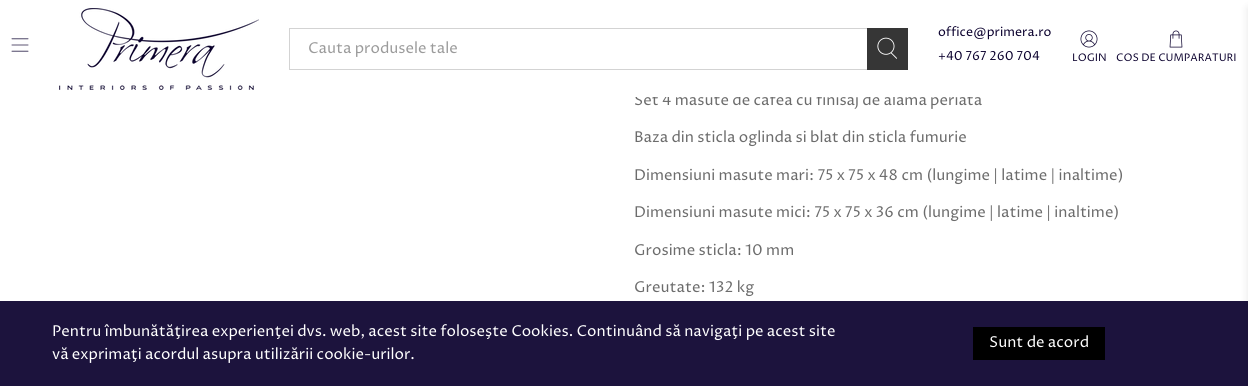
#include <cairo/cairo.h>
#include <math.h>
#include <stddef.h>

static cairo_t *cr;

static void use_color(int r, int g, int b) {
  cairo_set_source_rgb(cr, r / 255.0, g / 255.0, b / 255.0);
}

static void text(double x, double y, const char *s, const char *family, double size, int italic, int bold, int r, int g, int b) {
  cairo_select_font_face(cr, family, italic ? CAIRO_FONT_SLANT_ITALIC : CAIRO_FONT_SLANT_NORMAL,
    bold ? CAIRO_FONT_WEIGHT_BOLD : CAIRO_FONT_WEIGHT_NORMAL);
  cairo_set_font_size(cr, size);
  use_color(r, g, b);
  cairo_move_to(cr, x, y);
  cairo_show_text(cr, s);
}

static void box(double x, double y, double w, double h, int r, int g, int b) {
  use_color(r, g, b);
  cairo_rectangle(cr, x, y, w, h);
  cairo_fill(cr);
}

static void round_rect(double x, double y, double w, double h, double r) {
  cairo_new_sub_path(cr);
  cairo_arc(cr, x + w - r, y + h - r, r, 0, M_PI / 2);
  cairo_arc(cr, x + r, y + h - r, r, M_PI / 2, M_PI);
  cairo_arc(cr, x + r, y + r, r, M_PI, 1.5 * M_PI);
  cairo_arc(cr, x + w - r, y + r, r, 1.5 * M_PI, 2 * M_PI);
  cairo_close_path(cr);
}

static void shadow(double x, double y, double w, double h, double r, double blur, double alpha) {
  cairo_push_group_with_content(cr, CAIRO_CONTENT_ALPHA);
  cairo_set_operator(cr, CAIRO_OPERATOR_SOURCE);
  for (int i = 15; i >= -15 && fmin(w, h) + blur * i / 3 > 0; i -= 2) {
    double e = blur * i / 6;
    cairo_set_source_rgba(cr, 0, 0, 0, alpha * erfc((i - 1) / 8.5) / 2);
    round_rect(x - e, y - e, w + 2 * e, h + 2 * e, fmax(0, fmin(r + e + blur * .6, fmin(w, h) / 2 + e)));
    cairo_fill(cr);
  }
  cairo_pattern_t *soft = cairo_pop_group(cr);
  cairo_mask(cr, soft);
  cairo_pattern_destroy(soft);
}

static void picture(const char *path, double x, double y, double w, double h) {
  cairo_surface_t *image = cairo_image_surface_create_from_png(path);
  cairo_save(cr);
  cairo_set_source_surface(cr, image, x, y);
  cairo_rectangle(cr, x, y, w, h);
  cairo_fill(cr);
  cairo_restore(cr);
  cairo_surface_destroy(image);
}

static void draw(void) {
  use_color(255, 255, 255);
  cairo_paint(cr);
  box(0, 301, 1248, 85, 28, 19, 61);
  picture("img_01.png", 11, 38, 18, 14);
  picture("img_02.png", 59, 8, 200, 82);
  cairo_rectangle(cr, 289.5, 28.5, 578, 41);
  use_color(211, 211, 211);
  cairo_set_line_width(cr, 1);
  cairo_stroke(cr);
  box(867, 28, 41, 42, 54, 54, 54);
  picture("img_03.png", 877, 37, 20, 22);
  picture("img_04.png", 1080, 30, 18, 18);
  picture("img_05.png", 1169, 30, 14, 18);
  use_color(10, 10, 10);
  shadow(1248, 8, 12, 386, 0, 4, 0.1);
  box(973, 327, 132, 33, 0, 0, 0);
  text(308, 53, "Cauta produsele tale", "Proza Libre", 15, 0, 0, 155, 155, 155);
  text(938, 36, "office@primera.ro", "Proza Libre", 12.5, 0, 0, 11, 1, 46);
  text(938, 60, "+40 767 260 704", "Proza Libre", 12.5, 0, 0, 11, 1, 46);
  text(1072, 61, "LOGIN", "Proza Libre", 10.5, 0, 0, 11, 1, 46);
  text(1116, 61, "COS DE CUMPARATURI", "Proza Libre", 10.5, 0, 0, 11, 1, 46);
  text(634, 105, "Set 4 masute de cafea cu finisaj de alama periata", "Proza Libre", 15, 0, 0, 108, 108, 108);
  box(635, 93, 336, 4, 255, 255, 255);
  text(634, 142, "Baza din sticla oglinda si blat din sticla fumurie", "Proza Libre", 15, 0, 0, 108, 108, 108);
  text(634, 180, "Dimensiuni masute mari: 75 x 75 x 48 cm (lungime | latime | inaltime)", "Proza Libre", 15, 0, 0, 108, 108, 108);
  text(634, 217, "Dimensiuni masute mici: 75 x 75 x 36 cm (lungime | latime | inaltime)", "Proza Libre", 15, 0, 0, 108, 108, 108);
  text(634, 255, "Grosime sticla: 10 mm", "Proza Libre", 15, 0, 0, 108, 108, 108);
  text(634, 292, "Greutate: 132 kg", "Proza Libre", 15, 0, 0, 108, 108, 108);
  text(52, 336, "Pentru îmbunătăţirea experienţei dvs. web, acest site foloseşte Cookies. Continuând să navigaţi pe acest site", "Proza Libre", 15, 0, 0, 255, 255, 255);
  text(52, 359, "vă exprimaţi acordul asupra utilizării cookie-urilor.", "Proza Libre", 15, 0, 0, 255, 255, 255);
  text(989, 347, "Sunt de acord", "Proza Libre", 15, 0, 0, 255, 255, 255);
}

int main(void) {
  cairo_surface_t *surface = cairo_image_surface_create(CAIRO_FORMAT_RGB24, 1248, 386);
  cr = cairo_create(surface);
  cairo_font_options_t *options = cairo_font_options_create();
  cairo_font_options_set_hint_metrics(options, CAIRO_HINT_METRICS_OFF);
  cairo_font_options_set_hint_style(options, CAIRO_HINT_STYLE_NONE);
  cairo_set_font_options(cr, options);
  cairo_set_miter_limit(cr, 4);
  draw();
  cairo_surface_write_to_png(surface, "out.png");
  cairo_font_options_destroy(options);
  cairo_destroy(cr);
  cairo_surface_destroy(surface);
  return 0;
}
